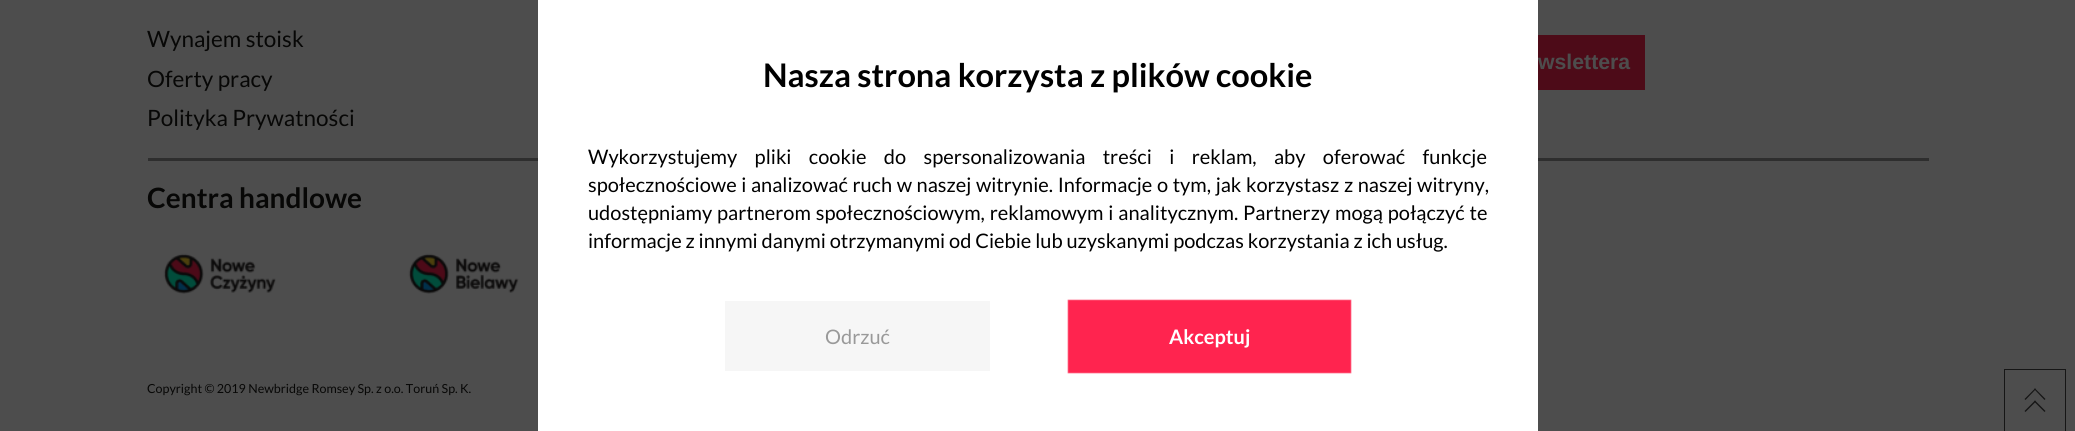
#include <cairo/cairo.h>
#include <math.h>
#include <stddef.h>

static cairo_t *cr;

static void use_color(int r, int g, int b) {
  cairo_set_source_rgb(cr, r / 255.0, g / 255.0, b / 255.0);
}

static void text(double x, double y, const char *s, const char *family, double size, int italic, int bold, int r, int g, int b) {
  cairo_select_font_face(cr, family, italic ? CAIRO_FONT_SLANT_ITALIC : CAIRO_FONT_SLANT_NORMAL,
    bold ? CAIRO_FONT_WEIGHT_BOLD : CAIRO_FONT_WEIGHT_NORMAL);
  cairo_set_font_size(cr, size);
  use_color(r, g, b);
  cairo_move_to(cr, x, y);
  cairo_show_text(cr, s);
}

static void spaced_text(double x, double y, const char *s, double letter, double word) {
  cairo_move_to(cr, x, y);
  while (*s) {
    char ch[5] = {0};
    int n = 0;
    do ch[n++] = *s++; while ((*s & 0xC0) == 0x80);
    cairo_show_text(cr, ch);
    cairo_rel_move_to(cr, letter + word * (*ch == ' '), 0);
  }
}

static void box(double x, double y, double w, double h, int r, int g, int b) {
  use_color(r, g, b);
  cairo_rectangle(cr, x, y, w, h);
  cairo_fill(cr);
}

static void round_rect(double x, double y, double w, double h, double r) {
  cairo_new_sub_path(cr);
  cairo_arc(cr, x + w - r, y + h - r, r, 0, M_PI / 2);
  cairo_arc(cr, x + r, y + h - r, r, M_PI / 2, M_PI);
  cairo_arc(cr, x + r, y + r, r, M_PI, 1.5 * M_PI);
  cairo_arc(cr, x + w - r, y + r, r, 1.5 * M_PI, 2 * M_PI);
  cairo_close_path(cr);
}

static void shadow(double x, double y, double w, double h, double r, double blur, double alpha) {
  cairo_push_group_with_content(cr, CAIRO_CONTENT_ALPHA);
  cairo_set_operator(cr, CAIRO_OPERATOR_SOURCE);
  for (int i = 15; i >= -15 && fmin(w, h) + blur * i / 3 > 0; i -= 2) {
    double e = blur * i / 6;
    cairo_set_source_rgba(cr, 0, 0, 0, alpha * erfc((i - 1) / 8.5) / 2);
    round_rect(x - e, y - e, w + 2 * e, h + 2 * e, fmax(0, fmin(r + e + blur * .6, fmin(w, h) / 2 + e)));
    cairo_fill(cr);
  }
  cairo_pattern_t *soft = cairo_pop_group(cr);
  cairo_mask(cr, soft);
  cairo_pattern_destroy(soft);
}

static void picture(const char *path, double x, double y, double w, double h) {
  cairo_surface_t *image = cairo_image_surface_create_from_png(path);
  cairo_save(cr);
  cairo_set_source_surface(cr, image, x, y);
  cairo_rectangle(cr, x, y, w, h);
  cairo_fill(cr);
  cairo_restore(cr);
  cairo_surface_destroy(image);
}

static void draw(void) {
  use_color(77, 77, 77);
  cairo_paint(cr);
  box(1538, 35, 107, 55, 77, 11, 24);
  box(148, 158, 1781, 3, 46, 46, 46);
  picture("img_01.png", 163, 253, 113, 41);
  picture("img_02.png", 408, 253, 111, 41);
  box(2004, 369, 62, 1, 22, 22, 22);
  box(2065, 369, 1, 62, 22, 22, 22);
  box(2004, 369, 1, 62, 22, 22, 22);
  cairo_new_path(cr);
  cairo_move_to(cr, 2024.5, 399);
  cairo_line_to(cr, 2035, 388.5);
  cairo_line_to(cr, 2036, 389);
  cairo_line_to(cr, 2025.5, 400);
  cairo_close_path(cr);
  cairo_fill(cr);
  cairo_new_path(cr);
  cairo_move_to(cr, 2035, 388.5);
  cairo_line_to(cr, 2045.5, 399);
  cairo_line_to(cr, 2044.5, 400);
  cairo_line_to(cr, 2034, 389);
  cairo_close_path(cr);
  cairo_move_to(cr, 2024.5, 411);
  cairo_line_to(cr, 2035, 400.5);
  cairo_line_to(cr, 2036, 401.5);
  cairo_line_to(cr, 2025.5, 412);
  cairo_close_path(cr);
  cairo_fill(cr);
  cairo_new_path(cr);
  cairo_move_to(cr, 2035, 400.5);
  cairo_line_to(cr, 2045.5, 411);
  cairo_line_to(cr, 2044.5, 412);
  cairo_line_to(cr, 2034, 401.5);
  cairo_close_path(cr);
  cairo_fill(cr);
  box(538, 0, 1000, 431, 255, 255, 255);
  box(725, 301, 265, 70, 246, 246, 246);
  use_color(255, 36, 79);
  shadow(1068, 300, 283, 73, 0, 0.5, 1);
  text(147, 47, "Wynajem stoisk", "Lato", 22.5, 0, 0, 7, 7, 6);
  text(147, 87, "Oferty pracy", "Lato", 22.5, 0, 0, 7, 7, 6);
  text(147, 126, "Polityka Prywatności", "Lato", 22.5, 0, 0, 7, 7, 6);
  text(1538, 69, "wslettera", "Liberation Sans", 21.25, 0, 1, 77, 77, 77);
  text(147, 208, "Centra handlowe", "Lato", 28, 0, 1, 7, 7, 6);
  text(147, 393, "Copyright © 2019 Newbridge Romsey Sp. z o.o. Toruń Sp. K.", "Lato", 12.5, 0, 0, 7, 7, 6);
  text(763, 87, "Nasza strona korzysta z plików cookie", "Lato", 32.5, 0, 1, 0, 0, 0);
  cairo_select_font_face(cr, "Lato", CAIRO_FONT_SLANT_NORMAL, CAIRO_FONT_WEIGHT_NORMAL);
  cairo_set_font_size(cr, 20);
  spaced_text(588, 164, "Wykorzystujemy pliki cookie do spersonalizowania treści i reklam, aby oferować funkcje", 0, 13.5);
  spaced_text(588, 192, "społecznościowe i analizować ruch w naszej witrynie. Informacje o tym, jak korzystasz z naszej witryny,", 0, 0.75);
  spaced_text(588, 220, "udostępniamy partnerom społecznościowym, reklamowym i analitycznym. Partnerzy mogą połączyć te", 0, 1);
  text(588, 248, "informacje z innymi danymi otrzymanymi od Ciebie lub uzyskanymi podczas korzystania z ich usług.", "Lato", 20, 0, 0, 0, 0, 0);
  text(825, 344, "Odrzuć", "Lato", 20, 0, 0, 153, 153, 153);
  text(1169, 344, "Akceptuj", "Lato", 20, 0, 1, 255, 255, 255);
}

int main(void) {
  cairo_surface_t *surface = cairo_image_surface_create(CAIRO_FORMAT_RGB24, 2075, 431);
  cr = cairo_create(surface);
  cairo_font_options_t *options = cairo_font_options_create();
  cairo_font_options_set_hint_metrics(options, CAIRO_HINT_METRICS_OFF);
  cairo_font_options_set_hint_style(options, CAIRO_HINT_STYLE_NONE);
  cairo_set_font_options(cr, options);
  cairo_set_miter_limit(cr, 4);
  draw();
  cairo_surface_write_to_png(surface, "out.png");
  cairo_font_options_destroy(options);
  cairo_destroy(cr);
  cairo_surface_destroy(surface);
  return 0;
}
